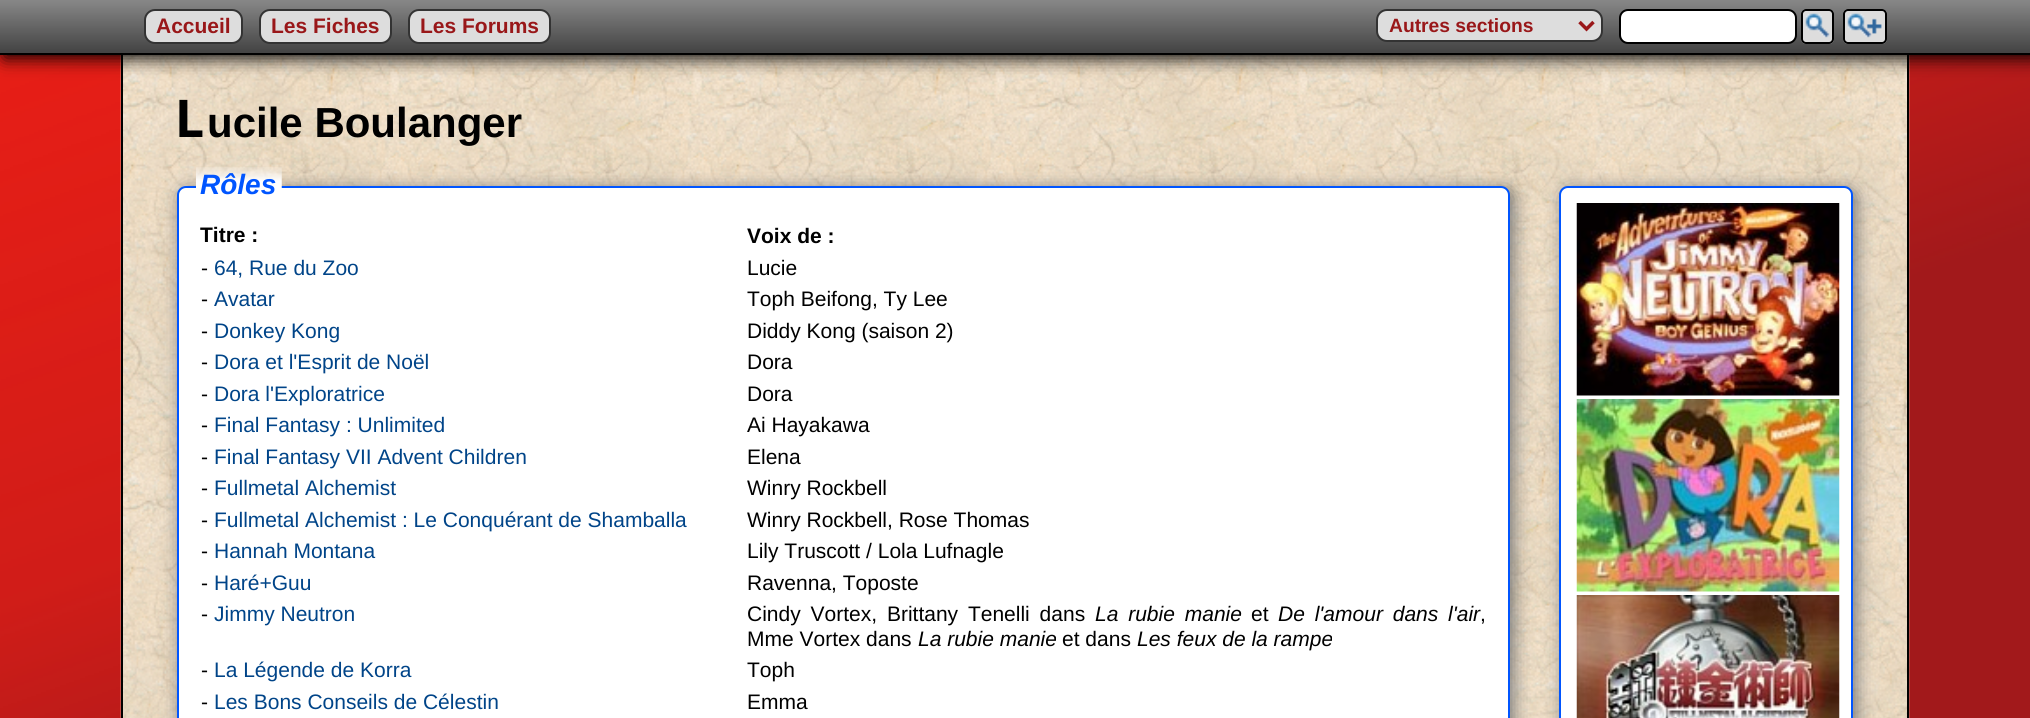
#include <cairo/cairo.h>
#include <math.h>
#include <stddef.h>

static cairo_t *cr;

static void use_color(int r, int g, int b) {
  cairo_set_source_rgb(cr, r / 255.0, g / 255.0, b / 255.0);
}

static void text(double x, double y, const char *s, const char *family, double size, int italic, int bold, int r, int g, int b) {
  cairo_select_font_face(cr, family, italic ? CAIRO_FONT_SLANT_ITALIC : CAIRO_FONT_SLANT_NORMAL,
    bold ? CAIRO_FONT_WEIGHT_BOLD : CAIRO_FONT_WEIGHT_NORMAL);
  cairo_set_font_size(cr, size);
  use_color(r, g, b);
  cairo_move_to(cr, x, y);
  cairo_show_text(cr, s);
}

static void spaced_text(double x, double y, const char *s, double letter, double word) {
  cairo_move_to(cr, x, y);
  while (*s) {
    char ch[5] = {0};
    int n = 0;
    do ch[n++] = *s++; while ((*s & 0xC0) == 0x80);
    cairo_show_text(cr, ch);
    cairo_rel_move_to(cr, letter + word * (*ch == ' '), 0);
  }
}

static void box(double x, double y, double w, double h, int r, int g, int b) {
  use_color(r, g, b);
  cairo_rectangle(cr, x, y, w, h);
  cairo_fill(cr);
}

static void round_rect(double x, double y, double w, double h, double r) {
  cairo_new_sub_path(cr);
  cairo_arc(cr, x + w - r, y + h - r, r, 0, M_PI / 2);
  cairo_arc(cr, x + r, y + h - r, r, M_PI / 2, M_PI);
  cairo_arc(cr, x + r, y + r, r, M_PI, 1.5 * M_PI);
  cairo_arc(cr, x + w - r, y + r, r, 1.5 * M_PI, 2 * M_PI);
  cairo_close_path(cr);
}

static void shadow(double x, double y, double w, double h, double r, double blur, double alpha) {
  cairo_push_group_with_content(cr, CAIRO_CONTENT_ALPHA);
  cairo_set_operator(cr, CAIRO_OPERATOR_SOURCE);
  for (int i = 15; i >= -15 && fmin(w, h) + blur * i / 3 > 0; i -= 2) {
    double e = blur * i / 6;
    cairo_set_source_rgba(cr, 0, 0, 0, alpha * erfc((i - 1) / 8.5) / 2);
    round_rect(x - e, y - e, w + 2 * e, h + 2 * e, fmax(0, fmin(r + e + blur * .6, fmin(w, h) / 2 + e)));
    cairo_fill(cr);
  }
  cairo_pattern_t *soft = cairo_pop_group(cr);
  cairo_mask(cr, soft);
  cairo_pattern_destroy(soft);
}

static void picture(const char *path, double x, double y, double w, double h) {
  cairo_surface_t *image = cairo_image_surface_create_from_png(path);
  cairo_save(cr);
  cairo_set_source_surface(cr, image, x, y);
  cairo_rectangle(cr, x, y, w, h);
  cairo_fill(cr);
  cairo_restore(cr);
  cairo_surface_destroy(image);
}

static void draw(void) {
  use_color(162, 25, 27);
  cairo_paint(cr);
  picture("img_01.png", 0, 55, 2030, 663);
  picture("img_05.png", 120, 55, 1790, 663);
  cairo_rectangle(cr, 122, 36, 1786, 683);
  use_color(0, 0, 0);
  cairo_stroke(cr);
  use_color(0, 0, 0);
  shadow(4, 4, 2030, 54, 0, 9, 1);
  picture("img_02.png", 0, 0, 2030, 53);
  box(0, 53, 2030, 2, 0, 0, 0);
  use_color(221, 221, 221);
  round_rect(145, 10, 97, 33, 10);
  cairo_fill_preserve(cr);
  use_color(51, 51, 51);
  cairo_stroke(cr);
  use_color(221, 221, 221);
  round_rect(260, 10, 131, 33, 10);
  cairo_fill_preserve(cr);
  use_color(51, 51, 51);
  cairo_stroke(cr);
  use_color(221, 221, 221);
  round_rect(409, 10, 141, 33, 10);
  cairo_fill_preserve(cr);
  use_color(51, 51, 51);
  cairo_stroke(cr);
  use_color(221, 221, 221);
  round_rect(1377, 10, 225, 31, 10);
  cairo_fill_preserve(cr);
  use_color(51, 51, 51);
  cairo_stroke(cr);
  cairo_new_path(cr);
  cairo_move_to(cr, 1579.5, 22);
  cairo_line_to(cr, 1586.5, 29);
  cairo_line_to(cr, 1593.5, 22);
  use_color(153, 23, 25);
  cairo_set_line_width(cr, 3.5);
  cairo_stroke(cr);
  use_color(255, 255, 255);
  round_rect(1620, 10, 176, 33, 8);
  cairo_fill_preserve(cr);
  use_color(0, 0, 0);
  cairo_set_line_width(cr, 2);
  cairo_stroke(cr);
  use_color(221, 221, 221);
  round_rect(1801, 9, 33, 35, 5);
  cairo_fill(cr);
  picture("img_03.png", 1805, 13, 25, 25);
  round_rect(1802, 10, 31, 33, 4);
  use_color(0, 0, 0);
  cairo_stroke(cr);
  use_color(221, 221, 221);
  round_rect(1843, 9, 44, 35, 5);
  cairo_fill(cr);
  picture("img_04.png", 1847, 13, 35, 25);
  round_rect(1844, 10, 42, 33, 4);
  use_color(0, 0, 0);
  cairo_stroke(cr);
  use_color(119, 119, 119);
  shadow(180, 189, 1334, 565, 9, 9, 1);
  use_color(255, 255, 255);
  round_rect(178, 187, 1331, 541, 8);
  cairo_fill_preserve(cr);
  use_color(0, 85, 255);
  cairo_stroke(cr);
  picture("img_06.png", 196, 167, 86, 21);
  use_color(119, 119, 119);
  shadow(1563, 189, 294, 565, 9, 9, 1);
  use_color(255, 255, 255);
  round_rect(1560, 187, 292, 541, 8);
  cairo_fill_preserve(cr);
  use_color(0, 85, 255);
  cairo_stroke(cr);
  picture("img_07.png", 1576, 203, 264, 193);
  picture("img_08.png", 1576, 399, 264, 193);
  picture("img_09.png", 1576, 595, 264, 123);
  text(156, 33, "Accueil", "Liberation Sans", 21, 0, 1, 153, 23, 25);
  text(271, 33, "Les Fiches", "Liberation Sans", 21, 0, 1, 153, 23, 25);
  text(420, 33, "Les Forums", "Liberation Sans", 21, 0, 1, 153, 23, 25);
  text(1389, 32, "Autres sections", "Liberation Sans", 19.25, 0, 1, 153, 23, 25);
  text(175, 137, "L", "Noto Sans", 52, 0, 1, 0, 0, 0);
  text(207, 137, "ucile Boulanger", "Liberation Sans", 42, 0, 1, 0, 0, 0);
  text(200, 194, "Rôles", "Liberation Sans", 28, 1, 1, 0, 85, 255);
  text(200, 242, "Titre :", "Liberation Sans", 21, 0, 1, 0, 0, 0);
  text(747, 243, "Voix de :", "Liberation Sans", 21, 0, 1, 0, 0, 0);
  text(201, 275, "-", "Liberation Sans", 21, 0, 0, 0, 0, 0);
  text(214, 275, "64, Rue du Zoo", "Liberation Sans", 21, 0, 0, 0, 68, 136);
  text(747, 275, "Lucie", "Liberation Sans", 21, 0, 0, 0, 0, 0);
  text(201, 306, "-", "Liberation Sans", 21, 0, 0, 0, 0, 0);
  text(214, 306, "Avatar", "Liberation Sans", 21, 0, 0, 0, 68, 136);
  text(747, 306, "Toph Beifong, Ty Lee", "Liberation Sans", 21, 0, 0, 0, 0, 0);
  text(201, 338, "-", "Liberation Sans", 21, 0, 0, 0, 0, 0);
  text(214, 338, "Donkey Kong", "Liberation Sans", 21, 0, 0, 0, 68, 136);
  text(747, 338, "Diddy Kong (saison 2)", "Liberation Sans", 21, 0, 0, 0, 0, 0);
  text(201, 369, "-", "Liberation Sans", 21, 0, 0, 0, 0, 0);
  text(214, 369, "Dora et l'Esprit de Noël", "Liberation Sans", 21, 0, 0, 0, 68, 136);
  text(747, 369, "Dora", "Liberation Sans", 21, 0, 0, 0, 0, 0);
  text(201, 401, "-", "Liberation Sans", 21, 0, 0, 0, 0, 0);
  text(214, 401, "Dora l'Exploratrice", "Liberation Sans", 21, 0, 0, 0, 68, 136);
  text(747, 401, "Dora", "Liberation Sans", 21, 0, 0, 0, 0, 0);
  text(201, 432, "-", "Liberation Sans", 21, 0, 0, 0, 0, 0);
  text(214, 432, "Final Fantasy : Unlimited", "Liberation Sans", 21, 0, 0, 0, 68, 136);
  text(747, 432, "Ai Hayakawa", "Liberation Sans", 21, 0, 0, 0, 0, 0);
  text(201, 464, "-", "Liberation Sans", 21, 0, 0, 0, 0, 0);
  text(214, 464, "Final Fantasy VII Advent Children", "Liberation Sans", 21, 0, 0, 0, 68, 136);
  text(747, 464, "Elena", "Liberation Sans", 21, 0, 0, 0, 0, 0);
  text(201, 495, "-", "Liberation Sans", 21, 0, 0, 0, 0, 0);
  text(214, 495, "Fullmetal Alchemist", "Liberation Sans", 21, 0, 0, 0, 68, 136);
  text(747, 495, "Winry Rockbell", "Liberation Sans", 21, 0, 0, 0, 0, 0);
  text(201, 527, "-", "Liberation Sans", 21, 0, 0, 0, 0, 0);
  text(214, 527, "Fullmetal Alchemist : Le Conquérant de Shamballa", "Liberation Sans", 21, 0, 0, 0, 68, 136);
  text(747, 527, "Winry Rockbell, Rose Thomas", "Liberation Sans", 21, 0, 0, 0, 0, 0);
  text(201, 558, "-", "Liberation Sans", 21, 0, 0, 0, 0, 0);
  text(214, 558, "Hannah Montana", "Liberation Sans", 21, 0, 0, 0, 68, 136);
  text(747, 558, "Lily Truscott / Lola Lufnagle", "Liberation Sans", 21, 0, 0, 0, 0, 0);
  text(201, 590, "-", "Liberation Sans", 21, 0, 0, 0, 0, 0);
  text(214, 590, "Haré+Guu", "Liberation Sans", 21, 0, 0, 0, 68, 136);
  text(747, 590, "Ravenna, Toposte", "Liberation Sans", 21, 0, 0, 0, 0, 0);
  text(201, 621, "-", "Liberation Sans", 21, 0, 0, 0, 0, 0);
  text(214, 621, "Jimmy Neutron", "Liberation Sans", 21, 0, 0, 0, 68, 136);
  use_color(0, 0, 0);
  spaced_text(747, 621, "Cindy Vortex, Brittany Tenelli dans", 0, 4);
  cairo_select_font_face(cr, "Liberation Sans", CAIRO_FONT_SLANT_ITALIC, CAIRO_FONT_WEIGHT_NORMAL);
  spaced_text(1095, 621, "La rubie manie", 0, 4);
  text(1251, 621, "et", "Liberation Sans", 21, 0, 0, 0, 0, 0);
  cairo_select_font_face(cr, "Liberation Sans", CAIRO_FONT_SLANT_ITALIC, CAIRO_FONT_WEIGHT_NORMAL);
  spaced_text(1278, 621, "De l'amour dans l'air", 0, 4);
  text(1480, 621, ",", "Liberation Sans", 21, 0, 0, 0, 0, 0);
  text(747, 646, "Mme Vortex dans", "Liberation Sans", 21, 0, 0, 0, 0, 0);
  text(918, 646, "La rubie manie", "Liberation Sans", 21, 1, 0, 0, 0, 0);
  text(1062, 646, "et dans", "Liberation Sans", 21, 0, 0, 0, 0, 0);
  text(1137, 646, "Les feux de la rampe", "Liberation Sans", 21, 1, 0, 0, 0, 0);
  text(201, 677, "-", "Liberation Sans", 21, 0, 0, 0, 0, 0);
  text(214, 677, "La Légende de Korra", "Liberation Sans", 21, 0, 0, 0, 68, 136);
  text(747, 677, "Toph", "Liberation Sans", 21, 0, 0, 0, 0, 0);
  text(201, 709, "-", "Liberation Sans", 21, 0, 0, 0, 0, 0);
  text(214, 709, "Les Bons Conseils de Célestin", "Liberation Sans", 21, 0, 0, 0, 68, 136);
  text(747, 709, "Emma", "Liberation Sans", 21, 0, 0, 0, 0, 0);
}

int main(void) {
  cairo_surface_t *surface = cairo_image_surface_create(CAIRO_FORMAT_RGB24, 2030, 718);
  cr = cairo_create(surface);
  cairo_font_options_t *options = cairo_font_options_create();
  cairo_font_options_set_hint_metrics(options, CAIRO_HINT_METRICS_OFF);
  cairo_font_options_set_hint_style(options, CAIRO_HINT_STYLE_NONE);
  cairo_set_font_options(cr, options);
  cairo_set_miter_limit(cr, 4);
  draw();
  cairo_surface_write_to_png(surface, "out.png");
  cairo_font_options_destroy(options);
  cairo_destroy(cr);
  cairo_surface_destroy(surface);
  return 0;
}
